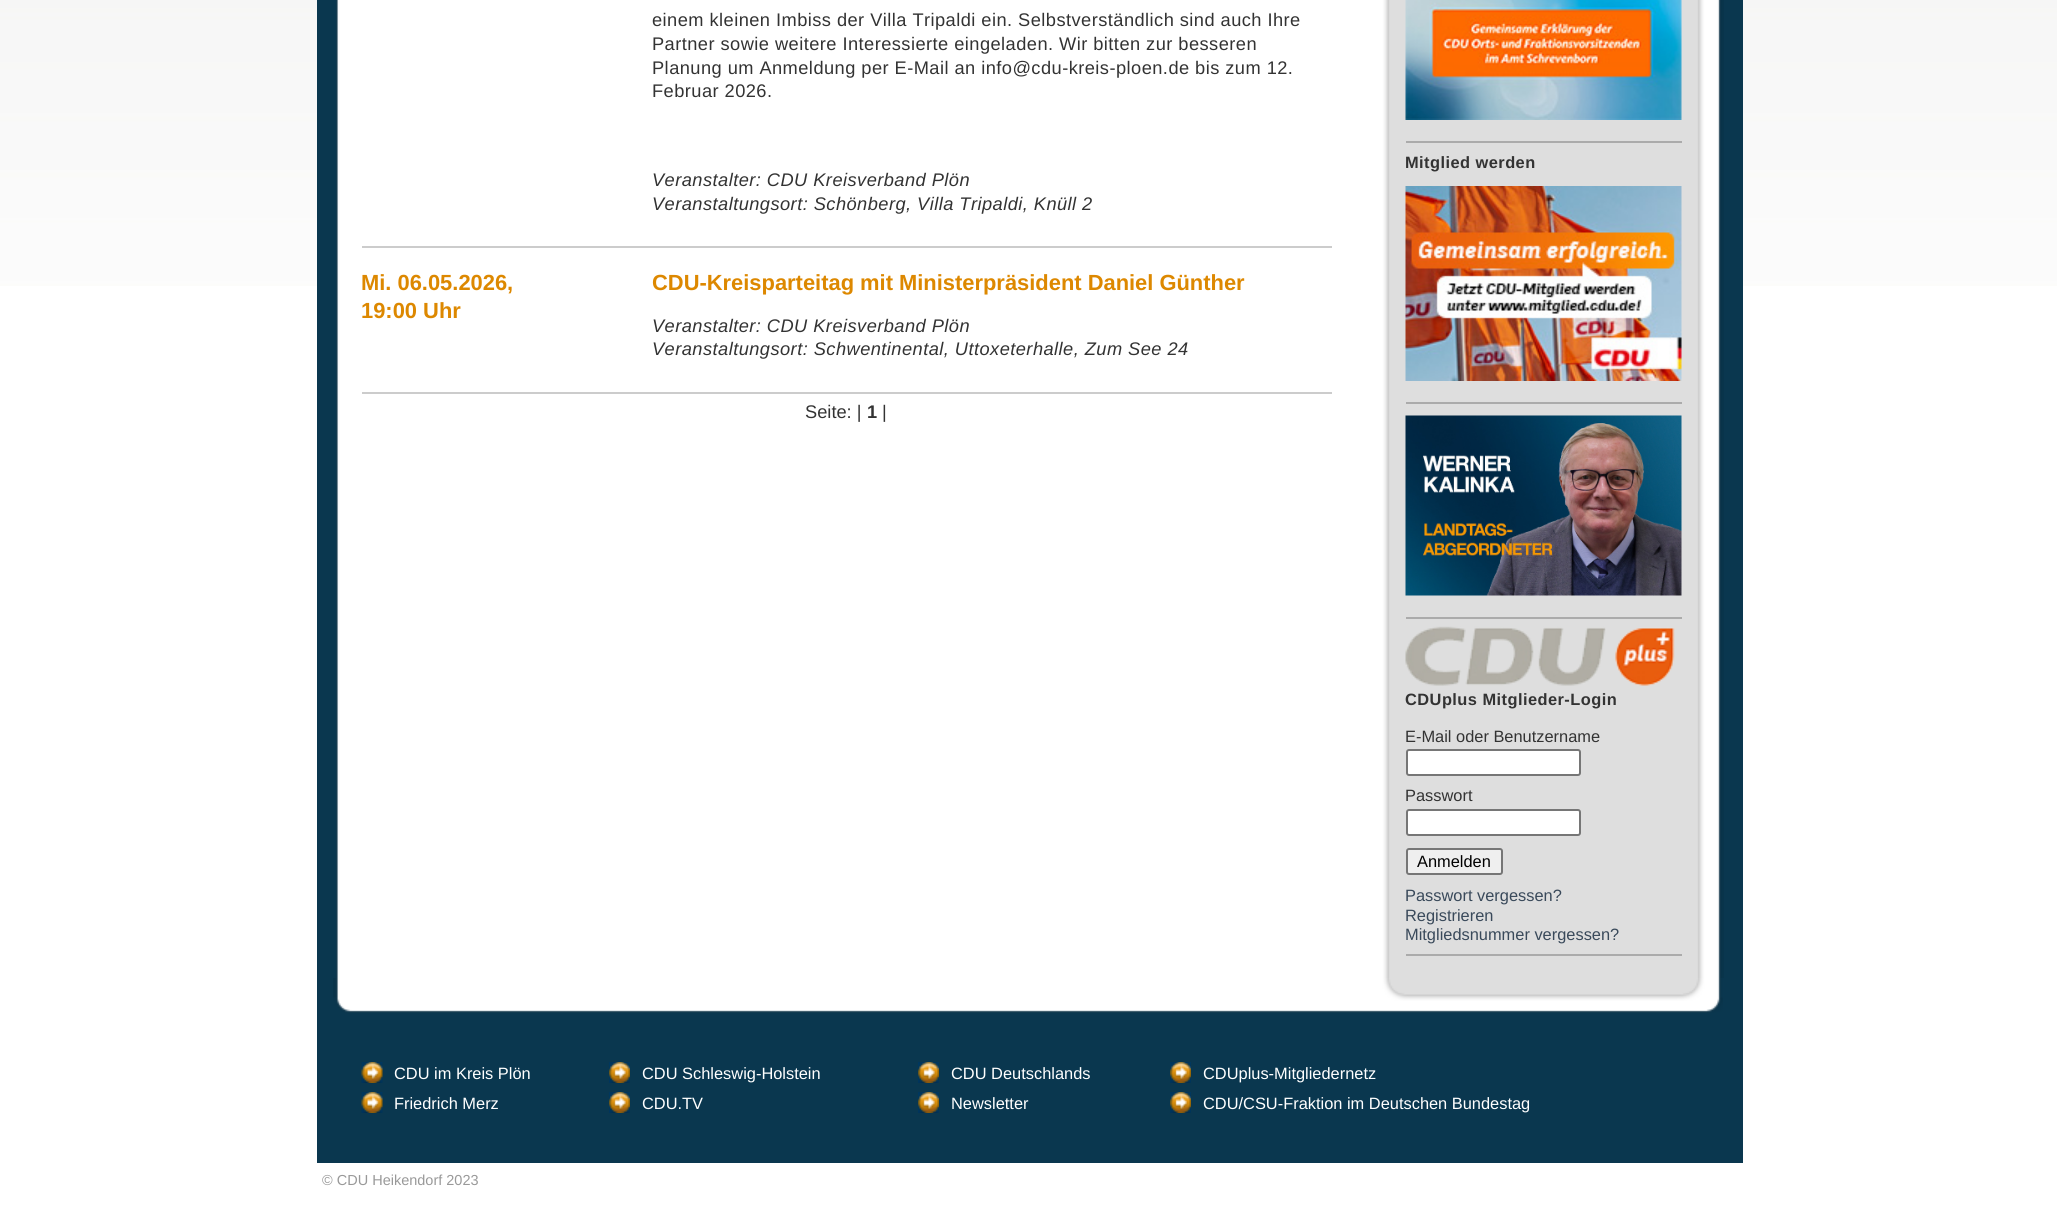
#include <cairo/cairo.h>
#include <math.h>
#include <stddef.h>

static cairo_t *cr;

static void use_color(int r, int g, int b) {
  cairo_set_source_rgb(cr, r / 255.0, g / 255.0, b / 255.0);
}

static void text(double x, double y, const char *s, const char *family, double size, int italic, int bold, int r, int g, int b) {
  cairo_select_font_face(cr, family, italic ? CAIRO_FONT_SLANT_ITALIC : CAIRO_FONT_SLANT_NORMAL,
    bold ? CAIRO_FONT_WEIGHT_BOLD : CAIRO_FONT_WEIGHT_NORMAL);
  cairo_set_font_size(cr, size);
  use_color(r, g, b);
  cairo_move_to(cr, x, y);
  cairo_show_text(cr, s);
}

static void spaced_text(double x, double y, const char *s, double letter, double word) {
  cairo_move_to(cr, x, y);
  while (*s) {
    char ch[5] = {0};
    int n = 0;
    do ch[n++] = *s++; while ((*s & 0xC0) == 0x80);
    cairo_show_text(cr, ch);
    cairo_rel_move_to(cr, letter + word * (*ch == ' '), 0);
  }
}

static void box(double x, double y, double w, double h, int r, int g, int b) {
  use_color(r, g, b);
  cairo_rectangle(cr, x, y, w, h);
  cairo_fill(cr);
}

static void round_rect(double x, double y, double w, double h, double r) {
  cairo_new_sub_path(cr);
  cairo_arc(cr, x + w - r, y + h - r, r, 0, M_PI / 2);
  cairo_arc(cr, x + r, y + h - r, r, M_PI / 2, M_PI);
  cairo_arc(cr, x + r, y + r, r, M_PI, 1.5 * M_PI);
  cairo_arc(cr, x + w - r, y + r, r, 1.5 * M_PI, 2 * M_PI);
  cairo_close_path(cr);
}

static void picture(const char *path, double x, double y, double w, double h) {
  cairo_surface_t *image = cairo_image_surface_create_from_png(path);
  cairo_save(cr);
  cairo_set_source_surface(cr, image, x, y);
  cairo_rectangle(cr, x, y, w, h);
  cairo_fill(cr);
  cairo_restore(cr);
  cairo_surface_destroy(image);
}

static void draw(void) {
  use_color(255, 255, 255);
  cairo_paint(cr);
  picture("img_01.png", 0, 0, 2057, 286);
  box(317, 0, 1426, 1163, 10, 55, 79);
  picture("img_02.png", 333, 978, 1390, 35);
  picture("img_03.png", 336, 0, 1388, 978);
  box(362, 246, 970, 2, 204, 204, 204);
  box(362, 392, 970, 2, 204, 204, 204);
  box(1406, 141, 276, 2, 171, 171, 171);
  picture("img_04.png", 1405, 0, 277, 120);
  box(1406, 402, 276, 2, 171, 171, 171);
  picture("img_05.png", 1405, 186, 277, 195);
  box(1406, 617, 276, 2, 171, 171, 171);
  picture("img_06.png", 1405, 415, 277, 181);
  box(1406, 954, 276, 2, 171, 171, 171);
  picture("img_07.png", 1405, 626, 270, 60);
  use_color(255, 255, 255);
  round_rect(1407, 750, 173, 25, 2);
  cairo_fill_preserve(cr);
  use_color(118, 118, 118);
  cairo_stroke(cr);
  use_color(255, 255, 255);
  round_rect(1407, 810, 173, 25, 2);
  cairo_fill_preserve(cr);
  use_color(118, 118, 118);
  cairo_stroke(cr);
  use_color(239, 239, 239);
  round_rect(1407, 849, 95, 25, 2);
  cairo_fill_preserve(cr);
  use_color(118, 118, 118);
  cairo_stroke(cr);
  picture("img_08.png", 361, 1062, 22, 21);
  picture("img_09.png", 609, 1062, 21, 21);
  picture("img_09.png", 918, 1062, 21, 21);
  picture("img_10.png", 1170, 1062, 21, 21);
  picture("img_08.png", 361, 1092, 22, 21);
  picture("img_09.png", 609, 1092, 21, 21);
  picture("img_09.png", 918, 1092, 21, 21);
  picture("img_10.png", 1170, 1092, 21, 21);
  cairo_select_font_face(cr, "Liberation Sans", CAIRO_FONT_SLANT_NORMAL, CAIRO_FONT_WEIGHT_NORMAL);
  cairo_set_font_size(cr, 18.25);
  use_color(51, 51, 51);
  spaced_text(652, 26, "einem kleinen Imbiss der Villa Tripaldi ein. Selbstverständlich sind auch Ihre", 0.45, 0);
  spaced_text(652, 50, "Partner sowie weitere Interessierte eingeladen. Wir bitten zur besseren", 0.45, 0);
  spaced_text(652, 74, "Planung um Anmeldung per E-Mail an info@cdu-kreis-ploen.de bis zum 12.", 0.45, 0);
  spaced_text(652, 97, "Februar 2026.", 0.45, 0);
  cairo_select_font_face(cr, "Liberation Sans", CAIRO_FONT_SLANT_ITALIC, CAIRO_FONT_WEIGHT_NORMAL);
  spaced_text(652, 186, "Veranstalter: CDU Kreisverband Plön", 0.45, 0);
  spaced_text(652, 210, "Veranstaltungsort: Schönberg, Villa Tripaldi, Knüll 2", 0.45, 0);
  text(361, 290, "Mi. 06.05.2026,", "Liberation Sans", 21.9, 0, 1, 221, 136, 0);
  text(361, 318, "19:00 Uhr", "Liberation Sans", 21.9, 0, 1, 221, 136, 0);
  text(652, 290, "CDU-Kreisparteitag mit Ministerpräsident Daniel Günther", "Liberation Sans", 21.9, 0, 1, 221, 136, 0);
  cairo_select_font_face(cr, "Liberation Sans", CAIRO_FONT_SLANT_ITALIC, CAIRO_FONT_WEIGHT_NORMAL);
  cairo_set_font_size(cr, 18.25);
  use_color(51, 51, 51);
  spaced_text(652, 332, "Veranstalter: CDU Kreisverband Plön", 0.45, 0);
  spaced_text(652, 355, "Veranstaltungsort: Schwentinental, Uttoxeterhalle, Zum See 24", 0.45, 0);
  text(805, 418, "Seite: |", "Liberation Sans", 18.25, 0, 0, 51, 51, 51);
  text(867, 418, "1", "Liberation Sans", 18.25, 0, 1, 51, 51, 51);
  text(882, 418, "|", "Liberation Sans", 18.25, 0, 0, 51, 51, 51);
  cairo_select_font_face(cr, "Liberation Sans", CAIRO_FONT_SLANT_NORMAL, CAIRO_FONT_WEIGHT_BOLD);
  cairo_set_font_size(cr, 16.4);
  spaced_text(1405, 168, "Mitglied werden", 0.45, 0);
  spaced_text(1405, 705, "CDUplus Mitglieder-Login", 0.45, 0);
  text(1405, 742, "E-Mail oder Benutzername", "Liberation Sans", 16.4, 0, 0, 51, 51, 51);
  text(1405, 801, "Passwort", "Liberation Sans", 16.4, 0, 0, 51, 51, 51);
  text(1417, 867, "Anmelden", "Liberation Sans", 16.4, 0, 0, 0, 0, 0);
  text(1405, 901, "Passwort vergessen?", "Liberation Sans", 16.4, 0, 0, 57, 73, 90);
  text(1405, 921, "Registrieren", "Liberation Sans", 16.4, 0, 0, 57, 73, 90);
  text(1405, 940, "Mitgliedsnummer vergessen?", "Liberation Sans", 16.4, 0, 0, 57, 73, 90);
  text(394, 1079, "CDU im Kreis Plön", "Liberation Sans", 16.4, 0, 0, 255, 255, 255);
  text(642, 1079, "CDU Schleswig-Holstein", "Liberation Sans", 16.4, 0, 0, 255, 255, 255);
  text(951, 1079, "CDU Deutschlands", "Liberation Sans", 16.4, 0, 0, 255, 255, 255);
  text(1203, 1079, "CDUplus-Mitgliedernetz", "Liberation Sans", 16.4, 0, 0, 255, 255, 255);
  text(394, 1109, "Friedrich Merz", "Liberation Sans", 16.4, 0, 0, 255, 255, 255);
  text(642, 1109, "CDU.TV", "Liberation Sans", 16.4, 0, 0, 255, 255, 255);
  text(951, 1109, "Newsletter", "Liberation Sans", 16.4, 0, 0, 255, 255, 255);
  text(1203, 1109, "CDU/CSU-Fraktion im Deutschen Bundestag", "Liberation Sans", 16.4, 0, 0, 255, 255, 255);
  text(322, 1185, "© CDU Heikendorf 2023", "Liberation Sans", 14.5, 0, 0, 153, 153, 153);
}

int main(void) {
  cairo_surface_t *surface = cairo_image_surface_create(CAIRO_FORMAT_RGB24, 2057, 1207);
  cr = cairo_create(surface);
  cairo_font_options_t *options = cairo_font_options_create();
  cairo_font_options_set_hint_metrics(options, CAIRO_HINT_METRICS_OFF);
  cairo_font_options_set_hint_style(options, CAIRO_HINT_STYLE_NONE);
  cairo_set_font_options(cr, options);
  cairo_set_miter_limit(cr, 4);
  draw();
  cairo_surface_write_to_png(surface, "out.png");
  cairo_font_options_destroy(options);
  cairo_destroy(cr);
  cairo_surface_destroy(surface);
  return 0;
}
